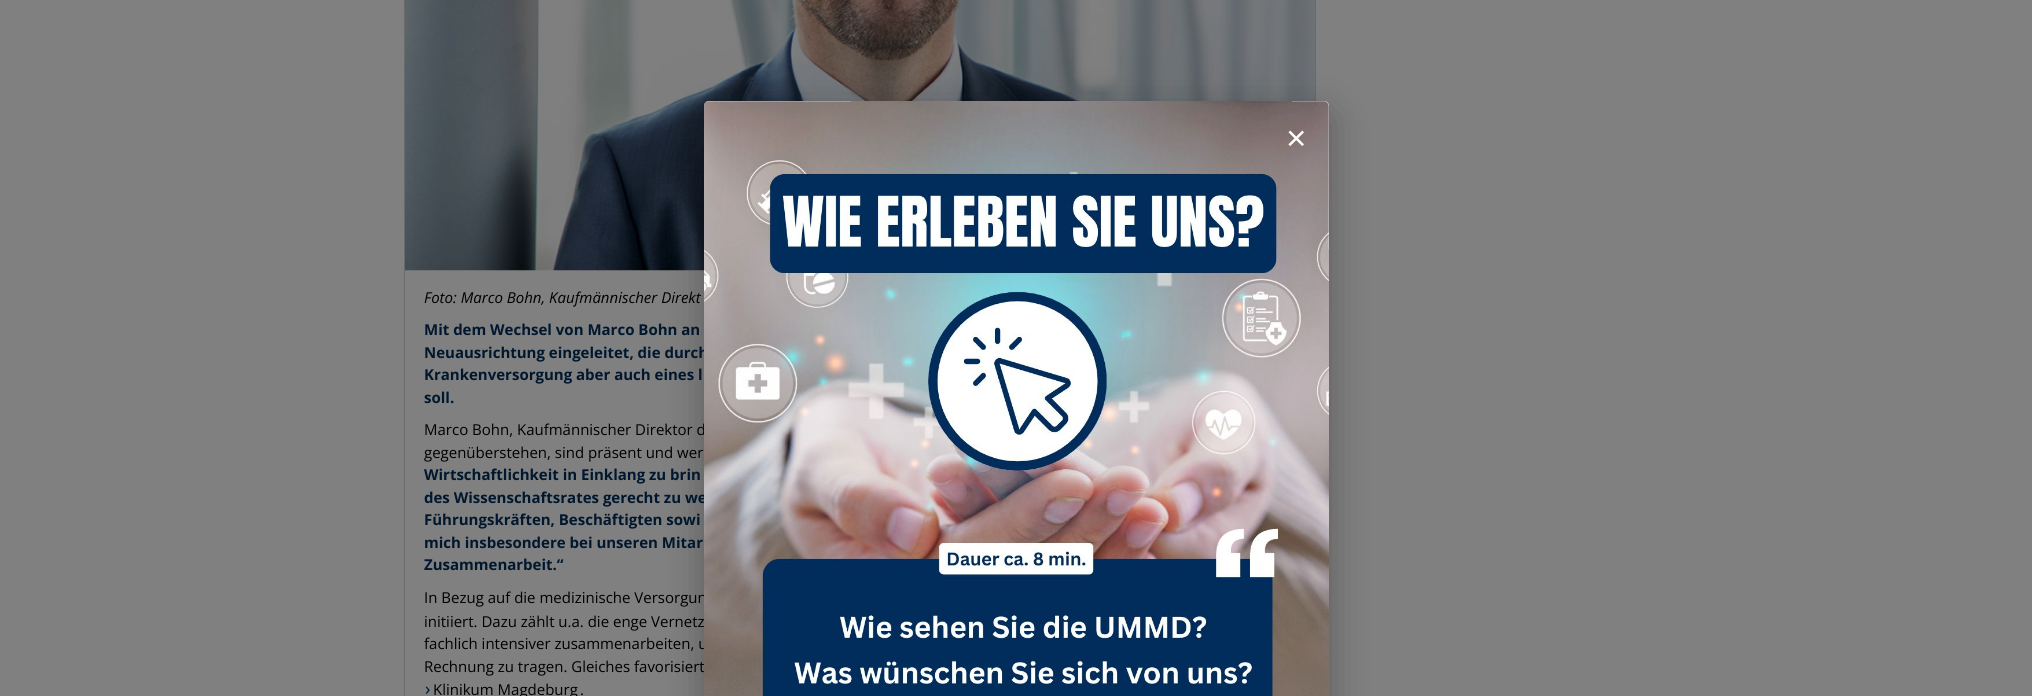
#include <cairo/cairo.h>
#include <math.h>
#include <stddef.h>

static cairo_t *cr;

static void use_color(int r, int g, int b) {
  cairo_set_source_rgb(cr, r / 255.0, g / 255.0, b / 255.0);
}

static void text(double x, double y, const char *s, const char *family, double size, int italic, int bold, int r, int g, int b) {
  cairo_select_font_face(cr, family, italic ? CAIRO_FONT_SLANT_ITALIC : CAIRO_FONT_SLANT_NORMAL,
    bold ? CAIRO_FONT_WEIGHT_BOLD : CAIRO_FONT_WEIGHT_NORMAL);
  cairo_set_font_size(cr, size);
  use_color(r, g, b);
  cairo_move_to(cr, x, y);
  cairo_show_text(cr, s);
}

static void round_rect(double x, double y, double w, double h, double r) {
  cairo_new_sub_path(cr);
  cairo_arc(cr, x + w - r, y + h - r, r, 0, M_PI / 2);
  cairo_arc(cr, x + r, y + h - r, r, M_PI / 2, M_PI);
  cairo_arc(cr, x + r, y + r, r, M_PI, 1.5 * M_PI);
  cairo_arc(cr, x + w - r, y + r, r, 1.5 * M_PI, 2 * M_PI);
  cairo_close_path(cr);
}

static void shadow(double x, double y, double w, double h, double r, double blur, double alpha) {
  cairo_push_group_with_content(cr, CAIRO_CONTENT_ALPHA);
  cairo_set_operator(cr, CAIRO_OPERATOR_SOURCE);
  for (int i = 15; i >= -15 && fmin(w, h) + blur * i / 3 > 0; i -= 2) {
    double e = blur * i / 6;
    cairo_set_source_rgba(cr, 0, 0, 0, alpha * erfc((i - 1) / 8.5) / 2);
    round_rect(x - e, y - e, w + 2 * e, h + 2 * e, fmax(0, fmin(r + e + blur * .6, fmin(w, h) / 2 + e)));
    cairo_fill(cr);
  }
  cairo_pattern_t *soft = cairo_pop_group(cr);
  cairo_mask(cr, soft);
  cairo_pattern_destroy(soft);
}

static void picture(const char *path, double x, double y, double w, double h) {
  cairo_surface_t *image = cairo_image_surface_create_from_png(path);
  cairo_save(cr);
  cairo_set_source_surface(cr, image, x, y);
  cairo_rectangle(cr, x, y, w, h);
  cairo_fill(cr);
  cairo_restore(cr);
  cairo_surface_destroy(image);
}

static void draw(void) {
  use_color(128, 128, 128);
  cairo_paint(cr);
  cairo_rectangle(cr, 404.5, -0.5, 911, 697);
  use_color(104, 106, 107);
  cairo_set_line_width(cr, 1);
  cairo_stroke(cr);
  picture("img_02.png", 405, 0, 910, 271);
  use_color(0, 0, 0);
  shadow(704, 114, 625, 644, 5, 19, 0.3);
  text(424, 303, "Foto: Marco Bohn, Kaufmännischer Direkt", "Open Sans", 15, 1, 0, 0, 0, 0);
  text(424, 335, "Mit dem Wechsel von Marco Bohn an", "Open Sans", 15, 0, 1, 0, 23, 46);
  text(424, 358, "Neuausrichtung eingeleitet, die durch", "Open Sans", 15, 0, 1, 0, 23, 46);
  text(424, 380, "Krankenversorgung aber auch eines l", "Open Sans", 15, 0, 1, 0, 23, 46);
  text(424, 403, "soll.", "Open Sans", 15, 0, 1, 0, 23, 46);
  text(424, 435, "Marco Bohn, Kaufmännischer Direktor d", "Open Sans", 15, 0, 0, 0, 0, 0);
  text(424, 458, "gegenüberstehen, sind präsent und wer", "Open Sans", 15, 0, 0, 0, 0, 0);
  text(424, 480, "Wirtschaftlichkeit in Einklang zu brin", "Open Sans", 15, 0, 1, 0, 23, 46);
  text(424, 503, "des Wissenschaftsrates gerecht zu we", "Open Sans", 15, 0, 1, 0, 23, 46);
  text(424, 525, "Führungskräften, Beschäftigten sowi", "Open Sans", 15, 0, 1, 0, 23, 46);
  text(424, 548, "mich insbesondere bei unseren Mitar", "Open Sans", 15, 0, 1, 0, 23, 46);
  text(424, 570, "Zusammenarbeit.“", "Open Sans", 15, 0, 1, 0, 23, 46);
  text(424, 603, "In Bezug auf die medizinische Versorgun", "Open Sans", 15, 0, 0, 0, 0, 0);
  text(424, 627, "initiiert. Dazu zählt u.a. die enge Vernetz", "Open Sans", 15, 0, 0, 0, 0, 0);
  text(424, 649, "fachlich intensiver zusammenarbeiten, u", "Open Sans", 15, 0, 0, 0, 0, 0);
  text(424, 672, "Rechnung zu tragen. Gleiches favorisiert", "Open Sans", 15, 0, 0, 0, 0, 0);
  use_color(255, 255, 255);
  round_rect(704, 101, 625, 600, 5);
  cairo_fill(cr);
  picture("img_01.png", 704, 101, 625, 595);
  text(1286, 150, "×", "Liberation Sans", 35, 0, 0, 255, 255, 255);
  text(425, 695, "›", "Open Sans", 18, 0, 0, 0, 23, 46);
  text(433, 695, "Klinikum Magdeburg", "Open Sans", 15, 0, 0, 0, 0, 0);
  text(580, 695, ".", "Open Sans", 15, 0, 0, 0, 0, 0);
}

int main(void) {
  cairo_surface_t *surface = cairo_image_surface_create(CAIRO_FORMAT_RGB24, 2032, 696);
  cr = cairo_create(surface);
  cairo_font_options_t *options = cairo_font_options_create();
  cairo_font_options_set_hint_metrics(options, CAIRO_HINT_METRICS_OFF);
  cairo_font_options_set_hint_style(options, CAIRO_HINT_STYLE_NONE);
  cairo_set_font_options(cr, options);
  cairo_set_miter_limit(cr, 4);
  draw();
  cairo_surface_write_to_png(surface, "out.png");
  cairo_font_options_destroy(options);
  cairo_destroy(cr);
  cairo_surface_destroy(surface);
  return 0;
}
